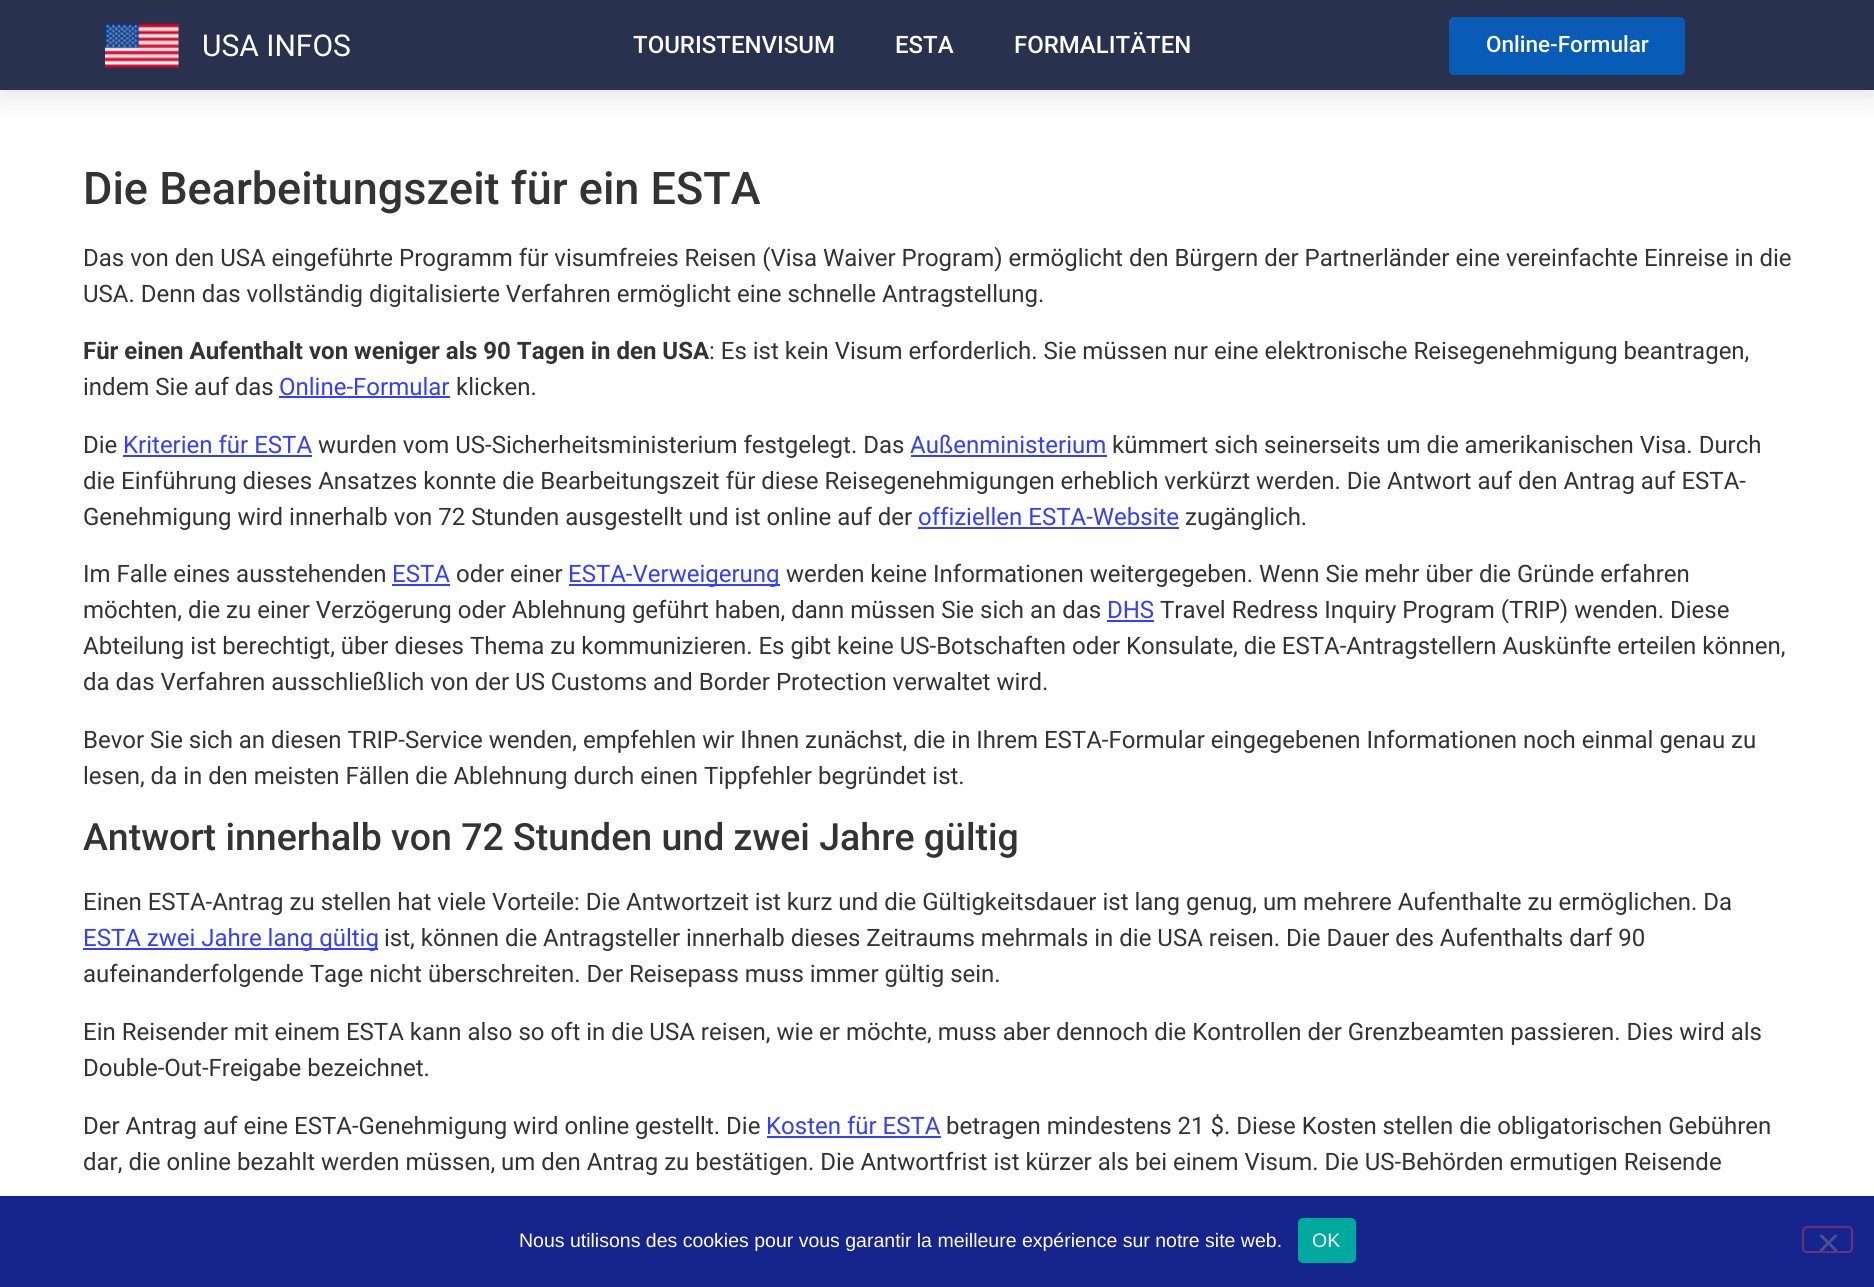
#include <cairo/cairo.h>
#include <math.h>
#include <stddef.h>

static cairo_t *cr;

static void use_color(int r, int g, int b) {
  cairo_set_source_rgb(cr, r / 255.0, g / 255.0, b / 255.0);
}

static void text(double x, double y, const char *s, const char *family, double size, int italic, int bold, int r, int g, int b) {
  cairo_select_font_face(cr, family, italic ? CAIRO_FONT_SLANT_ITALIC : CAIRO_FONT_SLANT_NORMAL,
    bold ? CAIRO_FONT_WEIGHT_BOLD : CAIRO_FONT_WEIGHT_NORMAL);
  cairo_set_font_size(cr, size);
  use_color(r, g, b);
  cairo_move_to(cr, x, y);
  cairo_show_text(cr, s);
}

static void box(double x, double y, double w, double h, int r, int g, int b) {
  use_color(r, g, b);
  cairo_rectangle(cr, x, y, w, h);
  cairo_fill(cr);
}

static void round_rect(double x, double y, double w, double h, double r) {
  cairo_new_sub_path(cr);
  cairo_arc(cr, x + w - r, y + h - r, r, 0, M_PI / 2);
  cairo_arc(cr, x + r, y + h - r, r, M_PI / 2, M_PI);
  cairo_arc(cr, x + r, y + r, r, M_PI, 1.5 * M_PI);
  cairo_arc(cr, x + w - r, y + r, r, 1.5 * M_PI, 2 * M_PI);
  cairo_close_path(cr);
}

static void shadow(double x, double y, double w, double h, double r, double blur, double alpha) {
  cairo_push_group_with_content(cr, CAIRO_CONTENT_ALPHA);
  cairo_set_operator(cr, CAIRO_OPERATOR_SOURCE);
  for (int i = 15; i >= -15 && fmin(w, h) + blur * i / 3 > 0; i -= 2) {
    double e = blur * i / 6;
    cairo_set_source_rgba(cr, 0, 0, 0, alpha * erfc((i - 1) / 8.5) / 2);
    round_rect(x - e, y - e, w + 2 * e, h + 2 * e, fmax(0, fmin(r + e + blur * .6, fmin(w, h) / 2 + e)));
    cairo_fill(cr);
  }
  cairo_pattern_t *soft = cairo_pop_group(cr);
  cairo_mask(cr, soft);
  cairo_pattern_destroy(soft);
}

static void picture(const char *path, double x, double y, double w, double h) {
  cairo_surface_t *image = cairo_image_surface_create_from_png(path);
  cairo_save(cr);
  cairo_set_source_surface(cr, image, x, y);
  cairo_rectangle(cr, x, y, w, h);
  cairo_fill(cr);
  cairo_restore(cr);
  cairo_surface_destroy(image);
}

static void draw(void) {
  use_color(255, 255, 255);
  cairo_paint(cr);
  use_color(0, 0, 0);
  shadow(0, 0, 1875, 90, 0, 18, 0.15);
  box(0, 0, 1874, 90, 40, 49, 78);
  picture("img_01.png", 105, 23, 74, 45);
  use_color(9, 92, 181);
  round_rect(1449, 17, 236, 58, 5);
  cairo_fill(cr);
  box(279, 396, 171, 2, 51, 63, 255);
  box(123, 455, 189, 2, 51, 63, 255);
  box(911, 455, 196, 2, 51, 63, 255);
  box(918, 527, 261, 2, 51, 63, 255);
  box(392, 584, 58, 2, 51, 63, 255);
  box(569, 584, 211, 2, 51, 63, 255);
  box(1107, 620, 47, 2, 51, 63, 255);
  box(83, 948, 295, 2, 51, 63, 255);
  box(767, 1136, 174, 2, 51, 63, 255);
  box(0, 1196, 1874, 91, 22, 36, 142);
  use_color(0, 169, 157);
  round_rect(1298, 1218, 58, 45, 5);
  cairo_fill(cr);
  round_rect(1803, 1227, 49, 25, 4);
  use_color(113, 44, 122);
  cairo_stroke(cr);
  use_color(75, 82, 135);
  cairo_new_path(cr);
  cairo_move_to(cr, 1835.5, 1234);
  cairo_line_to(cr, 1837.5, 1236);
  cairo_line_to(cr, 1821.5, 1252);
  cairo_line_to(cr, 1819.5, 1250);
  cairo_close_path(cr);
  cairo_fill(cr);
  cairo_new_path(cr);
  cairo_move_to(cr, 1819.5, 1236);
  cairo_line_to(cr, 1821.5, 1234);
  cairo_line_to(cr, 1837.5, 1250);
  cairo_line_to(cr, 1835.5, 1252);
  cairo_close_path(cr);
  cairo_fill(cr);
  text(202, 56, "USA INFOS", "Roboto", 30, 0, 0, 255, 255, 255);
  text(633, 53, "TOURISTENVISUM", "Roboto Medium", 24, 0, 0, 255, 255, 255);
  text(895, 53, "ESTA", "Roboto Medium", 24, 0, 0, 255, 255, 255);
  text(1014, 53, "FORMALITÄTEN", "Roboto Medium", 24, 0, 0, 255, 255, 255);
  text(1486, 52, "Online-Formular", "Roboto Medium", 22.5, 0, 0, 255, 255, 255);
  text(83, 204, "Die Bearbeitungszeit für ein ESTA", "Roboto Medium", 45, 0, 0, 51, 51, 51);
  text(83, 266, "Das von den USA eingeführte Programm für visumfreies Reisen (Visa Waiver Program) ermöglicht den Bürgern der Partnerländer eine vereinfachte Einreise in die", "Roboto", 24, 0, 0, 51, 51, 51);
  text(83, 302, "USA. Denn das vollständig digitalisierte Verfahren ermöglicht eine schnelle Antragstellung.", "Roboto", 24, 0, 0, 51, 51, 51);
  text(83, 359, "Für einen Aufenthalt von weniger als 90 Tagen in den USA", "Roboto", 24, 0, 1, 51, 51, 51);
  text(709, 359, ": Es ist kein Visum erforderlich. Sie müssen nur eine elektronische Reisegenehmigung beantragen,", "Roboto", 24, 0, 0, 51, 51, 51);
  text(83, 395, "indem Sie auf das", "Roboto", 24, 0, 0, 51, 51, 51);
  text(279, 395, "Online-Formular", "Roboto", 24, 0, 0, 51, 63, 255);
  text(456, 395, "klicken.", "Roboto", 24, 0, 0, 51, 51, 51);
  text(83, 453, "Die", "Roboto", 24, 0, 0, 51, 51, 51);
  text(123, 453, "Kriterien für ESTA", "Roboto", 24, 0, 0, 51, 63, 255);
  text(318, 453, "wurden vom US-Sicherheitsministerium festgelegt. Das", "Roboto", 24, 0, 0, 51, 51, 51);
  text(910, 453, "Außenministerium", "Roboto", 24, 0, 0, 51, 63, 255);
  text(1112, 453, "kümmert sich seinerseits um die amerikanischen Visa. Durch", "Roboto", 24, 0, 0, 51, 51, 51);
  text(83, 489, "die Einführung dieses Ansatzes konnte die Bearbeitungszeit für diese Reisegenehmigungen erheblich verkürzt werden. Die Antwort auf den Antrag auf ESTA-", "Roboto", 24, 0, 0, 51, 51, 51);
  text(83, 525, "Genehmigung wird innerhalb von 72 Stunden ausgestellt und ist online auf der", "Roboto", 24, 0, 0, 51, 51, 51);
  text(918, 525, "offiziellen ESTA-Website", "Roboto", 24, 0, 0, 51, 63, 255);
  text(1185, 525, "zugänglich.", "Roboto", 24, 0, 0, 51, 51, 51);
  text(83, 582, "Im Falle eines ausstehenden", "Roboto", 24, 0, 0, 51, 51, 51);
  text(392, 582, "ESTA", "Roboto", 24, 0, 0, 51, 63, 255);
  text(456, 582, "oder einer", "Roboto", 24, 0, 0, 51, 51, 51);
  text(568, 582, "ESTA-Verweigerung", "Roboto", 24, 0, 0, 51, 63, 255);
  text(786, 582, "werden keine Informationen weitergegeben. Wenn Sie mehr über die Gründe erfahren", "Roboto", 24, 0, 0, 51, 51, 51);
  text(83, 618, "möchten, die zu einer Verzögerung oder Ablehnung geführt haben, dann müssen Sie sich an das", "Roboto", 24, 0, 0, 51, 51, 51);
  text(1107, 618, "DHS", "Roboto", 24, 0, 0, 51, 63, 255);
  text(1160, 618, "Travel Redress Inquiry Program (TRIP) wenden. Diese", "Roboto", 24, 0, 0, 51, 51, 51);
  text(83, 654, "Abteilung ist berechtigt, über dieses Thema zu kommunizieren. Es gibt keine US-Botschaften oder Konsulate, die ESTA-Antragstellern Auskünfte erteilen können,", "Roboto", 24, 0, 0, 51, 51, 51);
  text(83, 690, "da das Verfahren ausschließlich von der US Customs and Border Protection verwaltet wird.", "Roboto", 24, 0, 0, 51, 51, 51);
  text(83, 748, "Bevor Sie sich an diesen TRIP-Service wenden, empfehlen wir Ihnen zunächst, die in Ihrem ESTA-Formular eingegebenen Informationen noch einmal genau zu", "Roboto", 24, 0, 0, 51, 51, 51);
  text(83, 784, "lesen, da in den meisten Fällen die Ablehnung durch einen Tippfehler begründet ist.", "Roboto", 24, 0, 0, 51, 51, 51);
  text(83, 850, "Antwort innerhalb von 72 Stunden und zwei Jahre gültig", "Roboto Medium", 37.5, 0, 0, 51, 51, 51);
  text(83, 910, "Einen ESTA-Antrag zu stellen hat viele Vorteile: Die Antwortzeit ist kurz und die Gültigkeitsdauer ist lang genug, um mehrere Aufenthalte zu ermöglichen. Da", "Roboto", 24, 0, 0, 51, 51, 51);
  text(83, 946, "ESTA zwei Jahre lang gültig", "Roboto", 24, 0, 0, 51, 63, 255);
  text(384, 946, "ist, können die Antragsteller innerhalb dieses Zeitraums mehrmals in die USA reisen. Die Dauer des Aufenthalts darf 90", "Roboto", 24, 0, 0, 51, 51, 51);
  text(83, 982, "aufeinanderfolgende Tage nicht überschreiten. Der Reisepass muss immer gültig sein.", "Roboto", 24, 0, 0, 51, 51, 51);
  text(83, 1040, "Ein Reisender mit einem ESTA kann also so oft in die USA reisen, wie er möchte, muss aber dennoch die Kontrollen der Grenzbeamten passieren. Dies wird als", "Roboto", 24, 0, 0, 51, 51, 51);
  text(83, 1076, "Double-Out-Freigabe bezeichnet.", "Roboto", 24, 0, 0, 51, 51, 51);
  text(83, 1134, "Der Antrag auf eine ESTA-Genehmigung wird online gestellt. Die", "Roboto", 24, 0, 0, 51, 51, 51);
  text(766, 1134, "Kosten für ESTA", "Roboto", 24, 0, 0, 51, 63, 255);
  text(946, 1134, "betragen mindestens 21 $. Diese Kosten stellen die obligatorischen Gebühren", "Roboto", 24, 0, 0, 51, 51, 51);
  text(83, 1170, "dar, die online bezahlt werden müssen, um den Antrag zu bestätigen. Die Antwortfrist ist kürzer als bei einem Visum. Die US-Behörden ermutigen Reisende", "Roboto", 24, 0, 0, 51, 51, 51);
  text(519, 1247, "Nous utilisons des cookies pour vous garantir la meilleure expérience sur notre site web.", "Liberation Sans", 19.5, 0, 0, 255, 255, 255);
  text(1312, 1247, "OK", "Liberation Sans", 19.5, 0, 0, 255, 255, 255);
}

int main(void) {
  cairo_surface_t *surface = cairo_image_surface_create(CAIRO_FORMAT_RGB24, 1874, 1287);
  cr = cairo_create(surface);
  cairo_font_options_t *options = cairo_font_options_create();
  cairo_font_options_set_hint_metrics(options, CAIRO_HINT_METRICS_OFF);
  cairo_font_options_set_hint_style(options, CAIRO_HINT_STYLE_NONE);
  cairo_set_font_options(cr, options);
  cairo_set_miter_limit(cr, 4);
  draw();
  cairo_surface_write_to_png(surface, "out.png");
  cairo_font_options_destroy(options);
  cairo_destroy(cr);
  cairo_surface_destroy(surface);
  return 0;
}
